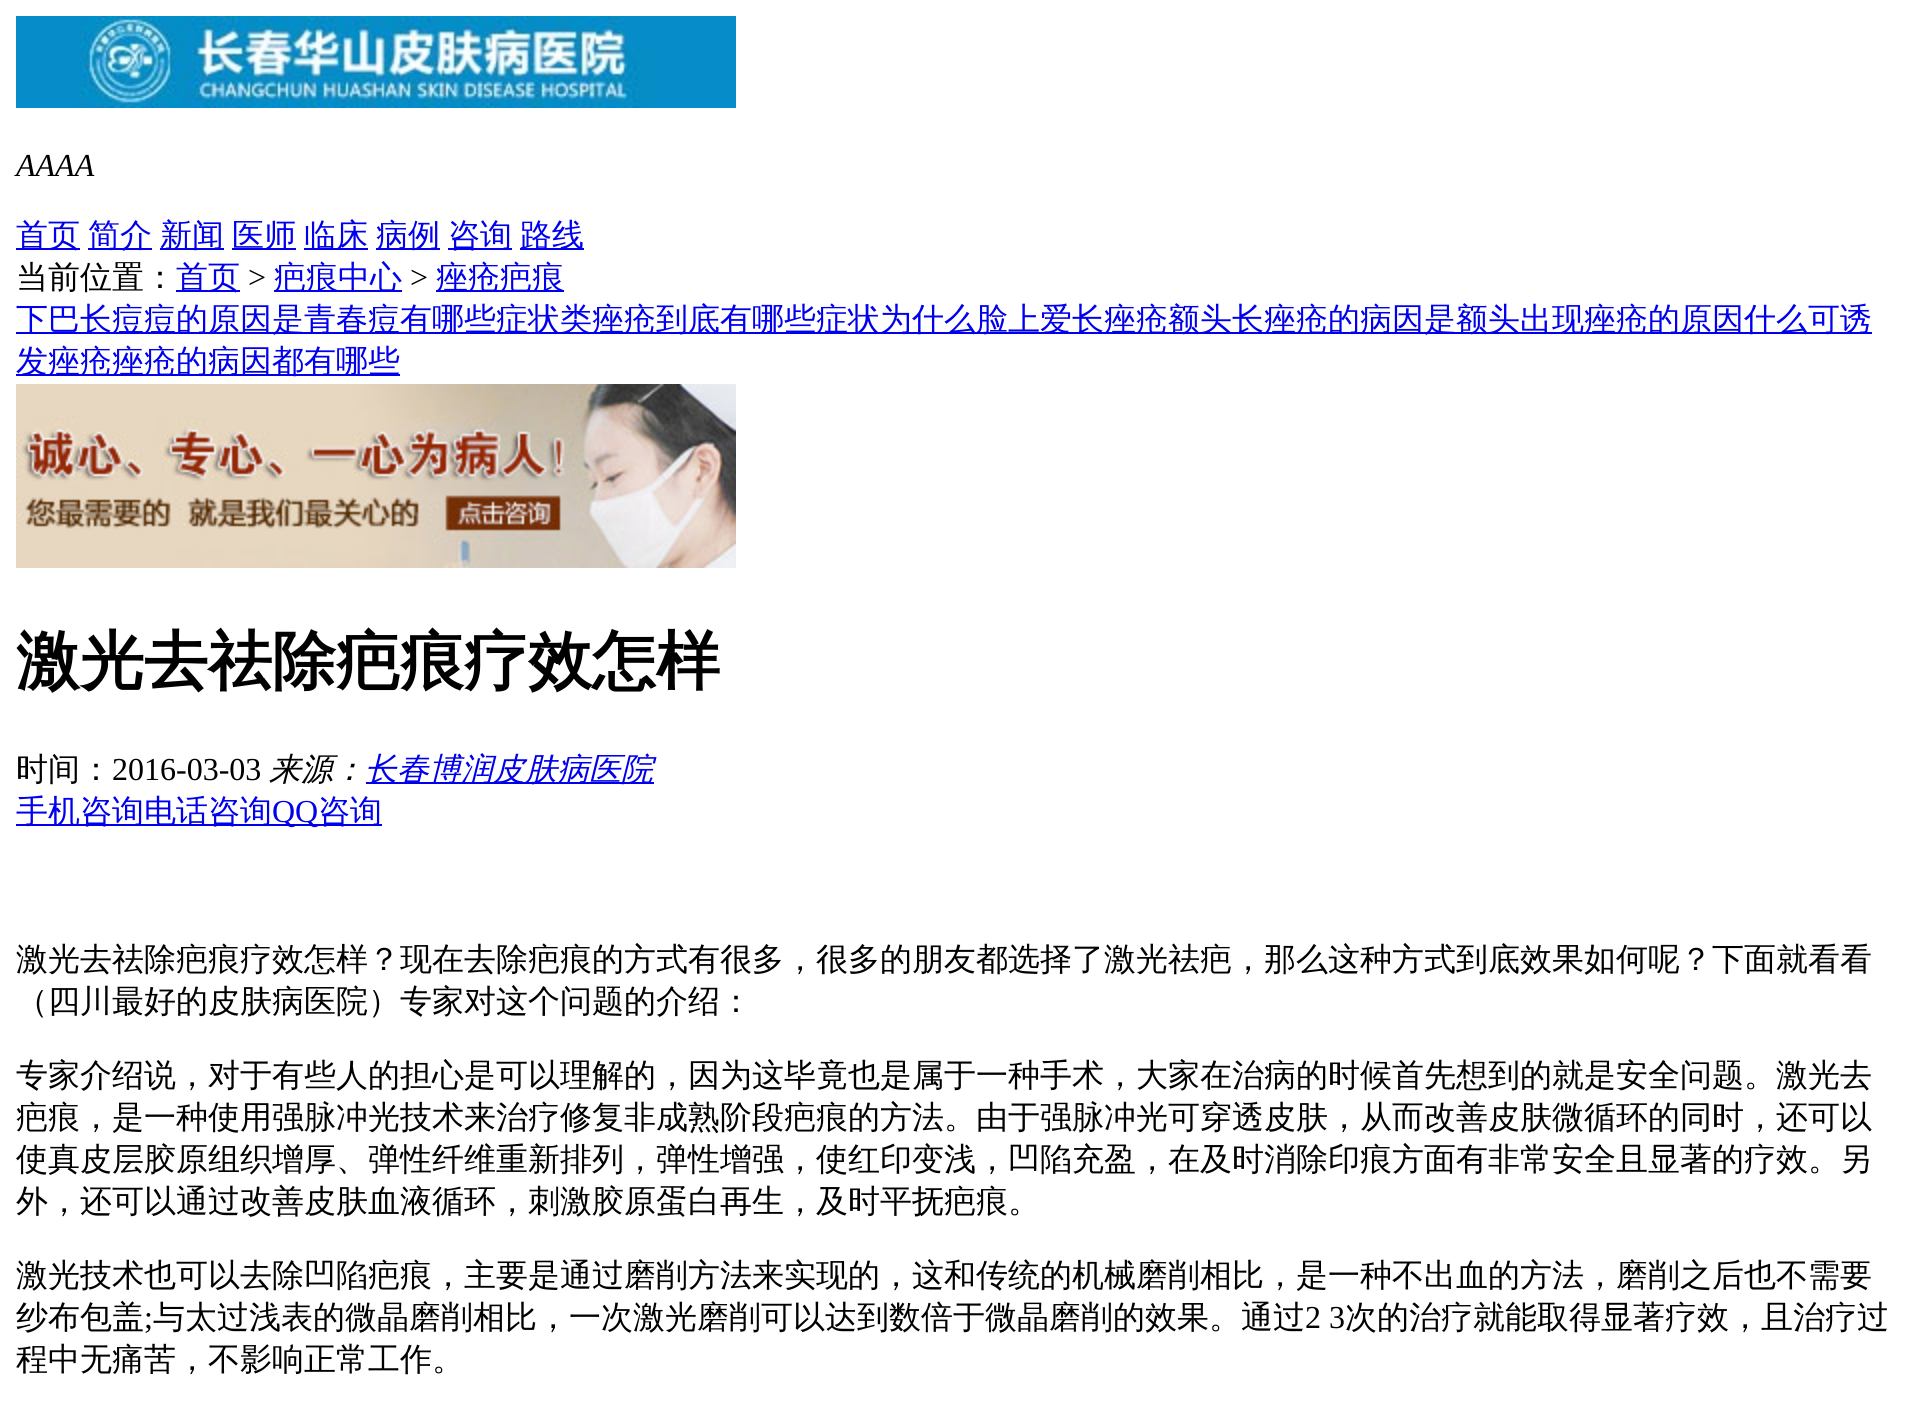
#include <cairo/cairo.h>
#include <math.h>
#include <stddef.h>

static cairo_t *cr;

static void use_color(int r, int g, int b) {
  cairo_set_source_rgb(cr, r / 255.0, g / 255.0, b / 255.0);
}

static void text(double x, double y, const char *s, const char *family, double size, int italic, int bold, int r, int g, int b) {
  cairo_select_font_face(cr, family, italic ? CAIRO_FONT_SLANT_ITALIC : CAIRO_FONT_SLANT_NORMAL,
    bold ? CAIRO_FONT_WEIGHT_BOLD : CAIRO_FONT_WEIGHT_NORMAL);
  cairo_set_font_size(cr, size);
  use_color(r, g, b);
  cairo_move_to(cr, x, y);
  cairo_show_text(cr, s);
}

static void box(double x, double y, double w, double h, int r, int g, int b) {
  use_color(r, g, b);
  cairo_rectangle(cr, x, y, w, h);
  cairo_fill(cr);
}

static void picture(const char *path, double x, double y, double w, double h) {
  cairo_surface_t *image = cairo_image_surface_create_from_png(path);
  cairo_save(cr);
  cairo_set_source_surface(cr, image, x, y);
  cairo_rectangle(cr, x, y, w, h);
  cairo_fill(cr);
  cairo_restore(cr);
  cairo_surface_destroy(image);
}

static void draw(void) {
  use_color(255, 255, 255);
  cairo_paint(cr);
  picture("img_01.png", 16, 16, 720, 92);
  box(16, 248, 64, 2, 0, 0, 238);
  box(88, 248, 64, 2, 0, 0, 238);
  box(160, 248, 64, 2, 0, 0, 238);
  box(232, 248, 64, 2, 0, 0, 238);
  box(304, 248, 64, 2, 0, 0, 238);
  box(376, 248, 64, 2, 0, 0, 238);
  box(448, 248, 64, 2, 0, 0, 238);
  box(520, 248, 64, 2, 0, 0, 238);
  box(176, 290, 64, 2, 0, 0, 238);
  box(274, 290, 128, 2, 0, 0, 238);
  box(436, 290, 128, 2, 0, 0, 238);
  box(16, 332, 1856, 2, 0, 0, 238);
  box(16, 374, 384, 2, 0, 0, 238);
  picture("img_02.png", 16, 384, 720, 184);
  box(366, 782, 288, 2, 0, 0, 238);
  box(16, 824, 366, 2, 0, 0, 238);
  text(16, 176, "AAAA", "Liberation Serif", 32, 1, 0, 0, 0, 0);
  text(16, 246, "首页", "WenQuanYi Zen Hei Medium", 32, 0, 0, 0, 0, 238);
  text(88, 246, "简介", "WenQuanYi Zen Hei Medium", 32, 0, 0, 0, 0, 238);
  text(160, 246, "新闻", "WenQuanYi Zen Hei Medium", 32, 0, 0, 0, 0, 238);
  text(232, 246, "医师", "WenQuanYi Zen Hei Medium", 32, 0, 0, 0, 0, 238);
  text(304, 246, "临床", "WenQuanYi Zen Hei Medium", 32, 0, 0, 0, 0, 238);
  text(376, 246, "病例", "WenQuanYi Zen Hei Medium", 32, 0, 0, 0, 0, 238);
  text(448, 246, "咨询", "WenQuanYi Zen Hei Medium", 32, 0, 0, 0, 0, 238);
  text(520, 246, "路线", "WenQuanYi Zen Hei Medium", 32, 0, 0, 0, 0, 238);
  text(16, 288, "当前位置：", "WenQuanYi Zen Hei Medium", 32, 0, 0, 0, 0, 0);
  text(176, 288, "首页", "WenQuanYi Zen Hei Medium", 32, 0, 0, 0, 0, 238);
  text(248, 288, ">", "Liberation Serif", 32, 0, 0, 0, 0, 0);
  text(274, 288, "疤痕中心", "WenQuanYi Zen Hei Medium", 32, 0, 0, 0, 0, 238);
  text(410, 288, ">", "Liberation Serif", 32, 0, 0, 0, 0, 0);
  text(436, 288, "痤疮疤痕", "WenQuanYi Zen Hei Medium", 32, 0, 0, 0, 0, 238);
  text(16, 330, "下巴长痘痘的原因是青春痘有哪些症状类痤疮到底有哪些症状为什么脸上爱长痤疮额头长痤疮的病因是额头出现痤疮的原因什么可诱", "WenQuanYi Zen Hei Medium", 32, 0, 0, 0, 0, 238);
  text(16, 372, "发痤疮痤疮的病因都有哪些", "WenQuanYi Zen Hei Medium", 32, 0, 0, 0, 0, 238);
  text(16, 683, "激光去祛除疤痕疗效怎样", "WenQuanYi Zen Hei", 64, 0, 1, 0, 0, 0);
  text(16, 780, "时间：", "WenQuanYi Zen Hei Medium", 32, 0, 0, 0, 0, 0);
  text(112, 780, "2016-03-03", "Liberation Serif", 32, 0, 0, 0, 0, 0);
  text(269, 780, "来源：", "WenQuanYi Zen Hei Medium", 32, 1, 0, 0, 0, 0);
  text(365, 780, "长春博润皮肤病医院", "WenQuanYi Zen Hei Medium", 32, 1, 0, 0, 0, 238);
  text(16, 822, "手机咨询电话咨询", "WenQuanYi Zen Hei Medium", 32, 0, 0, 0, 0, 238);
  text(272, 822, "QQ", "Liberation Serif", 32, 0, 0, 0, 0, 238);
  text(318, 822, "咨询", "WenQuanYi Zen Hei Medium", 32, 0, 0, 0, 0, 238);
  text(16, 970, "激光去祛除疤痕疗效怎样？现在去除疤痕的方式有很多，很多的朋友都选择了激光祛疤，那么这种方式到底效果如何呢？下面就看看", "WenQuanYi Zen Hei Medium", 32, 0, 0, 0, 0, 0);
  text(16, 1012, "（四川最好的皮肤病医院）专家对这个问题的介绍：", "WenQuanYi Zen Hei Medium", 32, 0, 0, 0, 0, 0);
  text(16, 1086, "专家介绍说，对于有些人的担心是可以理解的，因为这毕竟也是属于一种手术，大家在治病的时候首先想到的就是安全问题。激光去", "WenQuanYi Zen Hei Medium", 32, 0, 0, 0, 0, 0);
  text(16, 1128, "疤痕，是一种使用强脉冲光技术来治疗修复非成熟阶段疤痕的方法。由于强脉冲光可穿透皮肤，从而改善皮肤微循环的同时，还可以", "WenQuanYi Zen Hei Medium", 32, 0, 0, 0, 0, 0);
  text(16, 1170, "使真皮层胶原组织增厚、弹性纤维重新排列，弹性增强，使红印变浅，凹陷充盈，在及时消除印痕方面有非常安全且显著的疗效。另", "WenQuanYi Zen Hei Medium", 32, 0, 0, 0, 0, 0);
  text(16, 1212, "外，还可以通过改善皮肤血液循环，刺激胶原蛋白再生，及时平抚疤痕。", "WenQuanYi Zen Hei Medium", 32, 0, 0, 0, 0, 0);
  text(16, 1286, "激光技术也可以去除凹陷疤痕，主要是通过磨削方法来实现的，这和传统的机械磨削相比，是一种不出血的方法，磨削之后也不需要", "WenQuanYi Zen Hei Medium", 32, 0, 0, 0, 0, 0);
  text(16, 1328, "纱布包盖", "WenQuanYi Zen Hei Medium", 32, 0, 0, 0, 0, 0);
  text(144, 1328, ";", "Liberation Serif", 32, 0, 0, 0, 0, 0);
  text(153, 1328, "与太过浅表的微晶磨削相比，一次激光磨削可以达到数倍于微晶磨削的效果。通过", "WenQuanYi Zen Hei Medium", 32, 0, 0, 0, 0, 0);
  text(1305, 1328, "2 3", "Liberation Serif", 32, 0, 0, 0, 0, 0);
  text(1345, 1328, "次的治疗就能取得显著疗效，且治疗过", "WenQuanYi Zen Hei Medium", 32, 0, 0, 0, 0, 0);
  text(16, 1370, "程中无痛苦，不影响正常工作。", "WenQuanYi Zen Hei Medium", 32, 0, 0, 0, 0, 0);
}

int main(void) {
  cairo_surface_t *surface = cairo_image_surface_create(CAIRO_FORMAT_RGB24, 1917, 1424);
  cr = cairo_create(surface);
  cairo_font_options_t *options = cairo_font_options_create();
  cairo_font_options_set_hint_metrics(options, CAIRO_HINT_METRICS_OFF);
  cairo_font_options_set_hint_style(options, CAIRO_HINT_STYLE_NONE);
  cairo_set_font_options(cr, options);
  cairo_set_miter_limit(cr, 4);
  draw();
  cairo_surface_write_to_png(surface, "out.png");
  cairo_font_options_destroy(options);
  cairo_destroy(cr);
  cairo_surface_destroy(surface);
  return 0;
}
